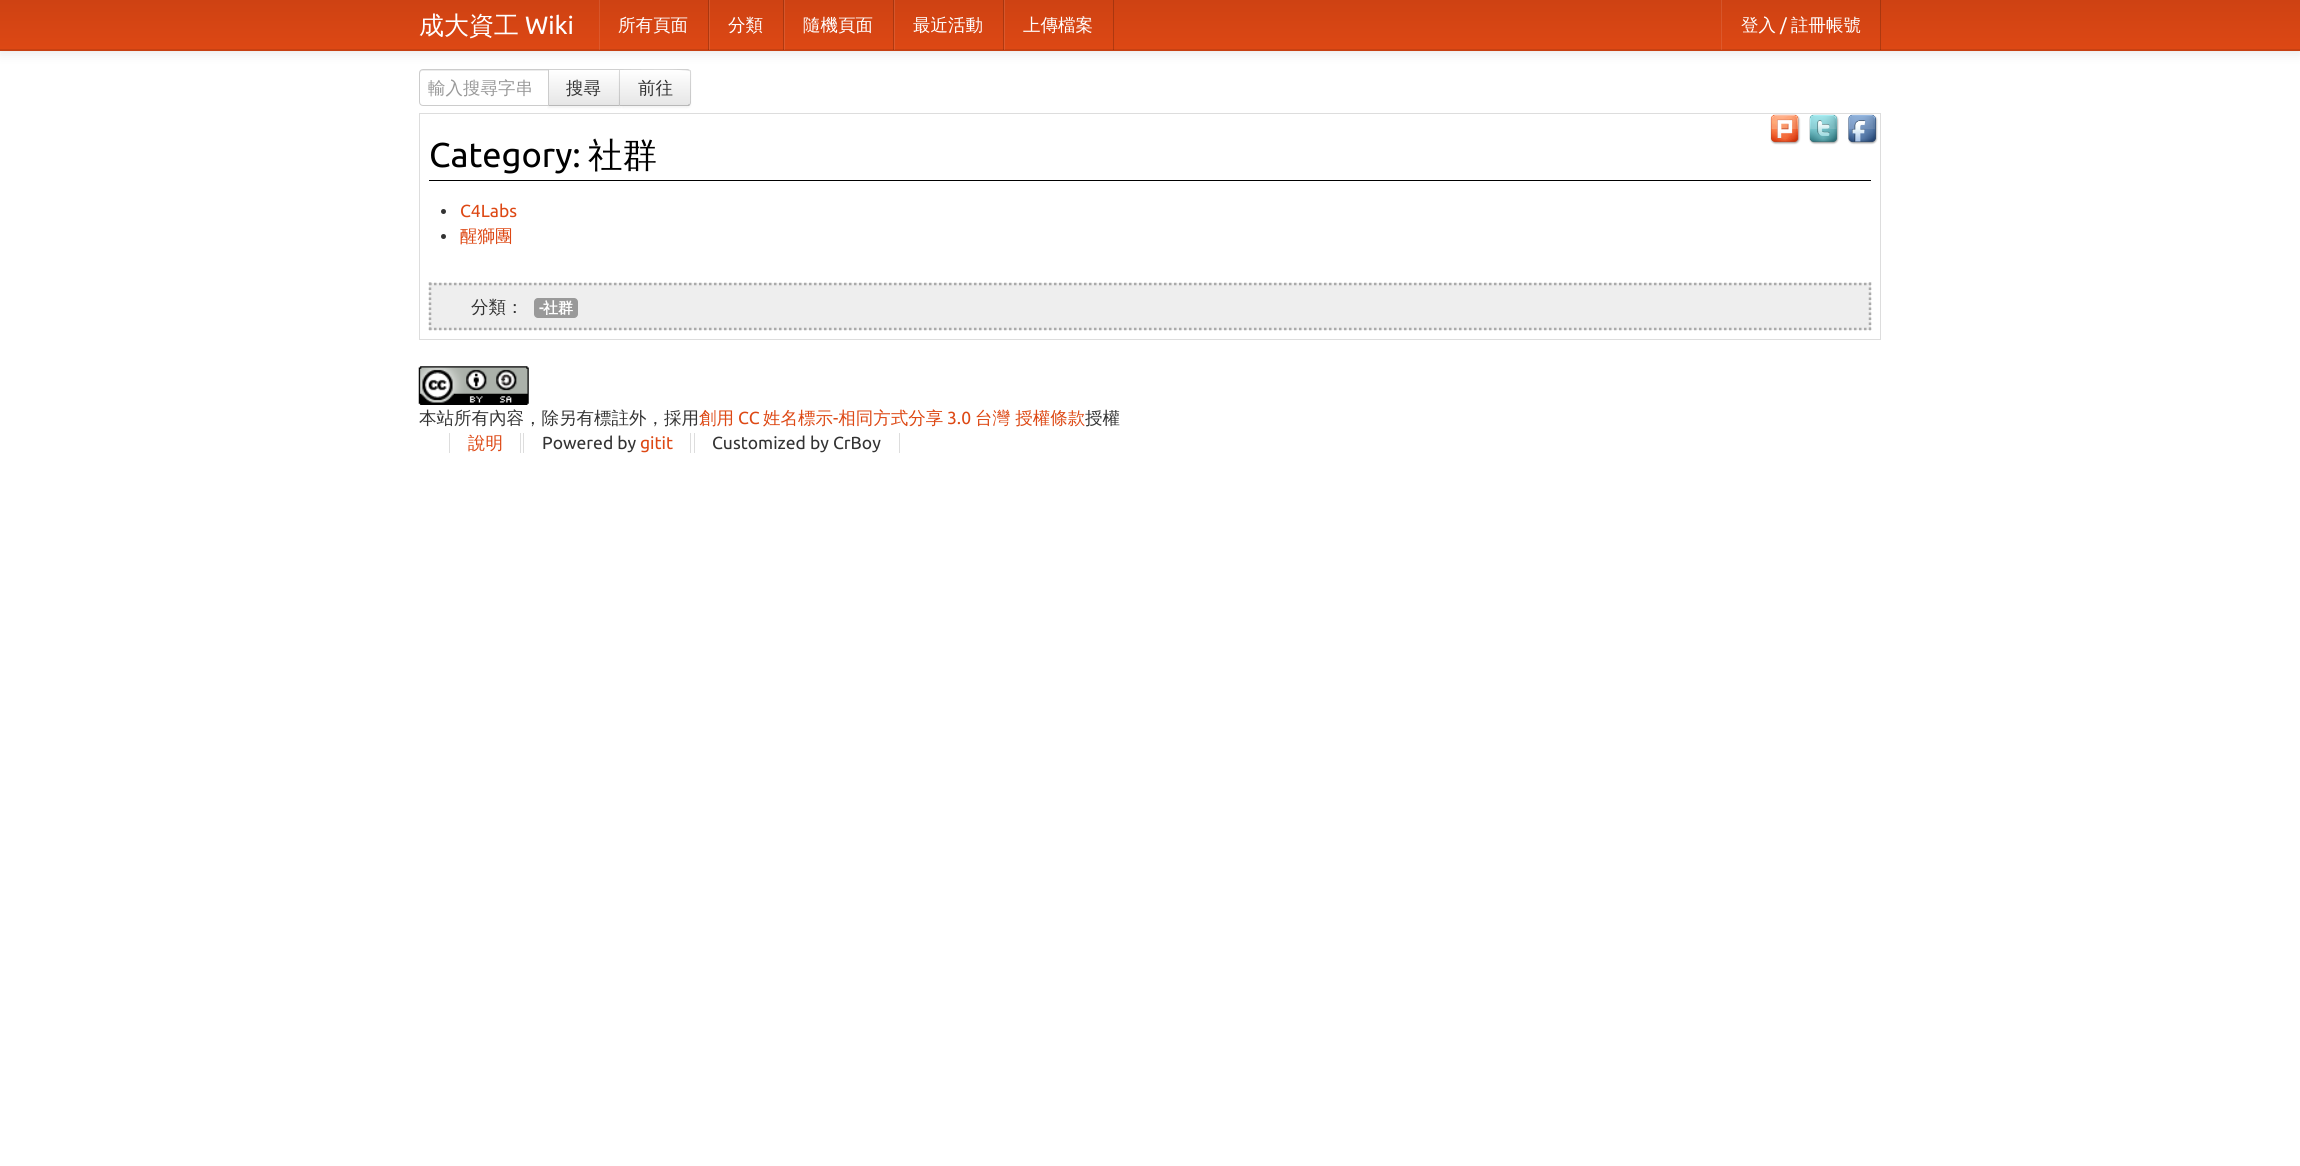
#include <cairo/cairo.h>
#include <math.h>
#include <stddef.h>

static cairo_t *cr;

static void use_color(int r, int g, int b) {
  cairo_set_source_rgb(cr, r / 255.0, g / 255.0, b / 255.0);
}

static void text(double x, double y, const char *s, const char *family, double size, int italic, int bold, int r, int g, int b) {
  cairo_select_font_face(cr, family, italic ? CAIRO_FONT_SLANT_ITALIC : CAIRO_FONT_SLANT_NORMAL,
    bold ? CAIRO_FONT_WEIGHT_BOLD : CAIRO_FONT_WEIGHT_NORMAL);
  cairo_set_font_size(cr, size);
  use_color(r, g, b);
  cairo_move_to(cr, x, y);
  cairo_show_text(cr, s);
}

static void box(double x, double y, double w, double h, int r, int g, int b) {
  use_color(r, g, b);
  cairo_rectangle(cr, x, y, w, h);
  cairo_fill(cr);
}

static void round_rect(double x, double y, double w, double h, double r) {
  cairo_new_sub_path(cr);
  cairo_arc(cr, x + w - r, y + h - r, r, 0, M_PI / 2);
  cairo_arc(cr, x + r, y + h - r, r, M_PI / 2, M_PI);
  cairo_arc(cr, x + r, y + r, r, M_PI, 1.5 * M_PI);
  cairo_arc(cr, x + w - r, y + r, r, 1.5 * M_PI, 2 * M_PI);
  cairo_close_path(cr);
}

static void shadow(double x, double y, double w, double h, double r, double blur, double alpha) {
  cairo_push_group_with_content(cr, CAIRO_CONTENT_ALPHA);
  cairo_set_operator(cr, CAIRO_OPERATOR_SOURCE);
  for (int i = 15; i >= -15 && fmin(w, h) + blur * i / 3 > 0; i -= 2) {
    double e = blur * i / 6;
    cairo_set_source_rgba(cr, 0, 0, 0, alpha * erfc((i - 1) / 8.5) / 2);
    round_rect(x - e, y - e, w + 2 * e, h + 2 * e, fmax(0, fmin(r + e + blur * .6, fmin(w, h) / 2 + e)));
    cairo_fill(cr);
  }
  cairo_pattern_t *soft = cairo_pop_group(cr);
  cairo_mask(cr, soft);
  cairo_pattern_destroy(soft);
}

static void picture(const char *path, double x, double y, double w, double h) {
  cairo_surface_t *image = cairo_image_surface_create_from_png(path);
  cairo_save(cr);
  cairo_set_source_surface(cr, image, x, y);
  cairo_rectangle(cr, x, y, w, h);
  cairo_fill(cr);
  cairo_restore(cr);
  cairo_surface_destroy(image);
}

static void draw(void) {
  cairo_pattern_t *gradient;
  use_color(255, 255, 255);
  cairo_paint(cr);
  use_color(0, 0, 0);
  shadow(548, 70, 72, 38, 0, 1, 0.05);
  use_color(208, 208, 208);
  cairo_new_path(cr);
  cairo_move_to(cr, 548, 69);
  cairo_line_to(cr, 620, 69);
  cairo_line_to(cr, 619, 70);
  cairo_line_to(cr, 549, 70);
  cairo_close_path(cr);
  cairo_fill(cr);
  box(549, 105, 70, 1, 245, 245, 245);
  cairo_set_source_rgba(cr, 0, 0, 0, 0.25);
  cairo_new_path(cr);
  cairo_move_to(cr, 620, 106);
  cairo_line_to(cr, 548, 106);
  cairo_line_to(cr, 549, 105);
  cairo_line_to(cr, 619, 105);
  cairo_close_path(cr);
  cairo_fill(cr);
  use_color(255, 255, 255);
  cairo_new_path(cr);
  cairo_move_to(cr, 423, 69);
  cairo_line_to(cr, 549, 69);
  cairo_line_to(cr, 549, 106);
  cairo_line_to(cr, 423, 106);
  cairo_curve_to(cr, 421, 106, 419, 104, 419, 102);
  cairo_line_to(cr, 419, 73);
  cairo_curve_to(cr, 419, 71, 421, 69, 423, 69);
  cairo_close_path(cr);
  cairo_fill(cr);
  use_color(236, 236, 236);
  cairo_new_path(cr);
  cairo_move_to(cr, 422, 71);
  cairo_line_to(cr, 548, 71);
  cairo_line_to(cr, 548, 70);
  cairo_line_to(cr, 422, 70);
  cairo_curve_to(cr, 421, 70, 420, 71, 420, 72);
  cairo_line_to(cr, 420, 74);
  cairo_curve_to(cr, 420, 72, 421, 71, 422, 71);
  cairo_close_path(cr);
  cairo_fill(cr);
  cairo_new_path(cr);
  cairo_move_to(cr, 423, 69.5);
  cairo_line_to(cr, 548.5, 69.5);
  cairo_line_to(cr, 548.5, 105.5);
  cairo_line_to(cr, 423, 105.5);
  cairo_curve_to(cr, 421, 105.5, 419.5, 104, 419.5, 102);
  cairo_line_to(cr, 419.5, 73);
  cairo_curve_to(cr, 419.5, 71, 421, 69.5, 423, 69.5);
  cairo_close_path(cr);
  use_color(204, 204, 204);
  cairo_set_line_width(cr, 1);
  cairo_stroke(cr);
  gradient = cairo_pattern_create_linear(584, 70, 584, 105);
  cairo_pattern_add_color_stop_rgba(gradient, 0, 1, 1, 1, 1);
  cairo_pattern_add_color_stop_rgba(gradient, 1, 0.902, 0.902, 0.902, 1);
  cairo_set_source(cr, gradient);
  cairo_pattern_destroy(gradient);
  cairo_rectangle(cr, 549, 70, 70, 35);
  cairo_fill(cr);
  use_color(0, 0, 0);
  shadow(619, 70, 72, 38, 4, 1, 0.05);
  use_color(245, 245, 245);
  cairo_new_path(cr);
  cairo_move_to(cr, 619, 69);
  cairo_line_to(cr, 687, 69);
  cairo_curve_to(cr, 689, 69, 691, 71, 691, 73);
  cairo_line_to(cr, 691, 102);
  cairo_curve_to(cr, 691, 104, 689, 106, 687, 106);
  cairo_line_to(cr, 619, 106);
  cairo_close_path(cr);
  cairo_fill(cr);
  cairo_save(cr);
  cairo_new_path(cr);
  cairo_move_to(cr, 619, 69);
  cairo_line_to(cr, 687, 69);
  cairo_curve_to(cr, 689, 69, 691, 71, 691, 73);
  cairo_line_to(cr, 691, 102);
  cairo_curve_to(cr, 691, 104, 689, 106, 687, 106);
  cairo_line_to(cr, 619, 106);
  cairo_close_path(cr);
  cairo_clip(cr);
  gradient = cairo_pattern_create_linear(655, 70, 655, 105);
  cairo_pattern_add_color_stop_rgba(gradient, 0, 1, 1, 1, 1);
  cairo_pattern_add_color_stop_rgba(gradient, 1, 0.902, 0.902, 0.902, 1);
  cairo_set_source(cr, gradient);
  cairo_pattern_destroy(gradient);
  cairo_rectangle(cr, 619, 70, 72, 35);
  cairo_fill(cr);
  cairo_restore(cr);
  cairo_set_source_rgba(cr, 0, 0, 0, 0.15);
  cairo_new_path(cr);
  cairo_move_to(cr, 619, 69);
  cairo_line_to(cr, 620, 70);
  cairo_curve_to(cr, 627, 70, 688, 69, 689, 71);
  cairo_line_to(cr, 690, 70);
  cairo_line_to(cr, 688, 69);
  cairo_close_path(cr);
  cairo_fill(cr);
  cairo_new_path(cr);
  cairo_move_to(cr, 690, 70);
  cairo_curve_to(cr, 691, 70, 691, 71, 691, 72);
  cairo_line_to(cr, 691, 102);
  cairo_curve_to(cr, 691, 103.5, 690.5, 104.5, 690, 105);
  cairo_line_to(cr, 689.5, 104.5);
  cairo_curve_to(cr, 690.5, 102.5, 690, 98, 690, 97);
  cairo_line_to(cr, 690, 72);
  cairo_line_to(cr, 689.5, 70.5);
  cairo_close_path(cr);
  cairo_fill(cr);
  cairo_set_source_rgba(cr, 0, 0, 0, 0.25);
  cairo_new_path(cr);
  cairo_move_to(cr, 690, 105);
  cairo_line_to(cr, 689, 106);
  cairo_line_to(cr, 619, 106);
  cairo_line_to(cr, 620, 105);
  cairo_line_to(cr, 688, 105);
  cairo_line_to(cr, 689, 104);
  cairo_close_path(cr);
  cairo_fill(cr);
  cairo_set_source_rgba(cr, 0, 0, 0, 0.15);
  cairo_new_path(cr);
  cairo_move_to(cr, 620, 70);
  cairo_line_to(cr, 619, 69);
  cairo_line_to(cr, 619, 106);
  cairo_line_to(cr, 620, 105);
  cairo_close_path(cr);
  cairo_fill(cr);
  use_color(0, 0, 0);
  shadow(0, 1, 2300, 52, 0, 6, 0.1);
  gradient = cairo_pattern_create_linear(1150, 0, 1150, 50);
  cairo_pattern_add_color_stop_rgba(gradient, 0, 0.808, 0.259, 0.075, 1);
  cairo_pattern_add_color_stop_rgba(gradient, 1, 0.867, 0.282, 0.078, 1);
  cairo_set_source(cr, gradient);
  cairo_pattern_destroy(gradient);
  cairo_rectangle(cr, 0, 0, 2300, 49);
  cairo_fill(cr);
  gradient = cairo_pattern_create_linear(1150, 0, 1150, 50);
  cairo_pattern_add_color_stop_rgba(gradient, 0, 0.827, 0.333, 0.169, 1);
  cairo_pattern_add_color_stop_rgba(gradient, 1, 0.878, 0.353, 0.173, 1);
  cairo_set_source(cr, gradient);
  cairo_pattern_destroy(gradient);
  cairo_rectangle(cr, 1721, 0, 1, 50);
  cairo_fill(cr);
  gradient = cairo_pattern_create_linear(1150, 0, 1150, 50);
  cairo_pattern_add_color_stop_rgba(gradient, 0, 0.647, 0.208, 0.059, 1);
  cairo_pattern_add_color_stop_rgba(gradient, 1, 0.694, 0.227, 0.063, 1);
  cairo_set_source(cr, gradient);
  cairo_pattern_destroy(gradient);
  cairo_rectangle(cr, 1880, 0, 1, 50);
  cairo_fill(cr);
  gradient = cairo_pattern_create_linear(1150, 0, 1150, 50);
  cairo_pattern_add_color_stop_rgba(gradient, 0, 0.827, 0.333, 0.169, 1);
  cairo_pattern_add_color_stop_rgba(gradient, 1, 0.878, 0.353, 0.173, 1);
  cairo_set_source(cr, gradient);
  cairo_pattern_destroy(gradient);
  cairo_rectangle(cr, 1004, 0, 1, 50);
  cairo_fill(cr);
  gradient = cairo_pattern_create_linear(1150, 0, 1150, 50);
  cairo_pattern_add_color_stop_rgba(gradient, 0, 0.647, 0.208, 0.059, 1);
  cairo_pattern_add_color_stop_rgba(gradient, 1, 0.694, 0.227, 0.063, 1);
  cairo_set_source(cr, gradient);
  cairo_pattern_destroy(gradient);
  cairo_rectangle(cr, 1113, 0, 1, 50);
  cairo_fill(cr);
  gradient = cairo_pattern_create_linear(1150, 0, 1150, 50);
  cairo_pattern_add_color_stop_rgba(gradient, 0, 0.827, 0.333, 0.169, 1);
  cairo_pattern_add_color_stop_rgba(gradient, 1, 0.878, 0.353, 0.173, 1);
  cairo_set_source(cr, gradient);
  cairo_pattern_destroy(gradient);
  cairo_rectangle(cr, 894, 0, 1, 50);
  cairo_fill(cr);
  gradient = cairo_pattern_create_linear(1150, 0, 1150, 50);
  cairo_pattern_add_color_stop_rgba(gradient, 0, 0.647, 0.208, 0.059, 1);
  cairo_pattern_add_color_stop_rgba(gradient, 1, 0.694, 0.227, 0.063, 1);
  cairo_set_source(cr, gradient);
  cairo_pattern_destroy(gradient);
  cairo_rectangle(cr, 1003, 0, 1, 50);
  cairo_fill(cr);
  gradient = cairo_pattern_create_linear(1150, 0, 1150, 50);
  cairo_pattern_add_color_stop_rgba(gradient, 0, 0.827, 0.333, 0.169, 1);
  cairo_pattern_add_color_stop_rgba(gradient, 1, 0.878, 0.353, 0.173, 1);
  cairo_set_source(cr, gradient);
  cairo_pattern_destroy(gradient);
  cairo_rectangle(cr, 784, 0, 1, 50);
  cairo_fill(cr);
  gradient = cairo_pattern_create_linear(1150, 0, 1150, 50);
  cairo_pattern_add_color_stop_rgba(gradient, 0, 0.647, 0.208, 0.059, 1);
  cairo_pattern_add_color_stop_rgba(gradient, 1, 0.694, 0.227, 0.063, 1);
  cairo_set_source(cr, gradient);
  cairo_pattern_destroy(gradient);
  cairo_rectangle(cr, 893, 0, 1, 50);
  cairo_fill(cr);
  gradient = cairo_pattern_create_linear(1150, 0, 1150, 50);
  cairo_pattern_add_color_stop_rgba(gradient, 0, 0.827, 0.333, 0.169, 1);
  cairo_pattern_add_color_stop_rgba(gradient, 1, 0.878, 0.353, 0.173, 1);
  cairo_set_source(cr, gradient);
  cairo_pattern_destroy(gradient);
  cairo_rectangle(cr, 709, 0, 1, 50);
  cairo_fill(cr);
  gradient = cairo_pattern_create_linear(1150, 0, 1150, 50);
  cairo_pattern_add_color_stop_rgba(gradient, 0, 0.647, 0.208, 0.059, 1);
  cairo_pattern_add_color_stop_rgba(gradient, 1, 0.694, 0.227, 0.063, 1);
  cairo_set_source(cr, gradient);
  cairo_pattern_destroy(gradient);
  cairo_rectangle(cr, 783, 0, 1, 50);
  cairo_fill(cr);
  gradient = cairo_pattern_create_linear(1150, 0, 1150, 50);
  cairo_pattern_add_color_stop_rgba(gradient, 0, 0.827, 0.333, 0.169, 1);
  cairo_pattern_add_color_stop_rgba(gradient, 1, 0.878, 0.353, 0.173, 1);
  cairo_set_source(cr, gradient);
  cairo_pattern_destroy(gradient);
  cairo_rectangle(cr, 599, 0, 1, 50);
  cairo_fill(cr);
  gradient = cairo_pattern_create_linear(1150, 0, 1150, 50);
  cairo_pattern_add_color_stop_rgba(gradient, 0, 0.647, 0.208, 0.059, 1);
  cairo_pattern_add_color_stop_rgba(gradient, 1, 0.694, 0.227, 0.063, 1);
  cairo_set_source(cr, gradient);
  cairo_pattern_destroy(gradient);
  cairo_rectangle(cr, 708, 0, 1, 50);
  cairo_fill(cr);
  box(0, 49, 2300, 1, 199, 65, 18);
  box(1721, 49, 1, 1, 205, 84, 42);
  box(1880, 49, 1, 1, 159, 52, 14);
  box(1004, 49, 1, 1, 205, 84, 42);
  box(1113, 49, 1, 1, 159, 52, 14);
  box(894, 49, 1, 1, 205, 84, 42);
  box(1003, 49, 1, 1, 159, 52, 14);
  box(784, 49, 1, 1, 205, 84, 42);
  box(893, 49, 1, 1, 159, 52, 14);
  box(709, 49, 1, 1, 205, 84, 42);
  box(783, 49, 1, 1, 159, 52, 14);
  box(599, 49, 1, 1, 205, 84, 42);
  box(708, 49, 1, 1, 159, 52, 14);
  box(0, 50, 2300, 1, 198, 64, 18);
  cairo_rectangle(cr, 419.5, 113.5, 1461, 226);
  use_color(221, 221, 221);
  cairo_stroke(cr);
  picture("img_01.png", 1770, 114, 31, 31);
  picture("img_02.png", 1809, 114, 30, 31);
  picture("img_03.png", 1848, 114, 30, 31);
  box(429, 180, 1442, 1, 0, 0, 0);
  use_color(51, 51, 51);
  cairo_arc(cr, 443.5, 211.5, 2.5, 0, 2 * M_PI);
  cairo_fill(cr);
  cairo_arc(cr, 443.5, 236.5, 2.5, 0, 2 * M_PI);
  cairo_fill(cr);
  box(429, 283, 1442, 47, 238, 238, 238);
  cairo_new_path(cr);
  cairo_move_to(cr, 429, 284);
  cairo_line_to(cr, 1871, 284);
  use_color(170, 170, 170);
  cairo_set_line_width(cr, 2.5);
  cairo_set_dash(cr, (double[]){2.5, 2.5}, 2, 0);
  cairo_stroke(cr);
  cairo_new_path(cr);
  cairo_move_to(cr, 1870, 282.5);
  cairo_line_to(cr, 1870, 330);
  cairo_stroke(cr);
  cairo_new_path(cr);
  cairo_move_to(cr, 429, 329);
  cairo_line_to(cr, 1871, 329);
  cairo_stroke(cr);
  cairo_new_path(cr);
  cairo_move_to(cr, 430, 282.5);
  cairo_line_to(cr, 430, 330);
  cairo_stroke(cr);
  use_color(153, 153, 153);
  round_rect(534, 298, 44, 20, 4);
  cairo_fill(cr);
  picture("img_04.png", 418, 366, 111, 39);
  box(520, 433, 1, 20, 221, 221, 221);
  box(449, 433, 1, 20, 221, 221, 221);
  box(523, 433, 1, 20, 221, 221, 221);
  box(690, 433, 1, 20, 221, 221, 221);
  box(899, 433, 1, 20, 221, 221, 221);
  box(694, 433, 1, 20, 221, 221, 221);
  text(419, 34, "成大資工", "WenQuanYi Zen Hei Medium", 25, 0, 0, 255, 255, 255);
  text(525, 34, "Wiki", "Ubuntu", 25, 0, 0, 255, 255, 255);
  text(618, 31, "所有頁面", "WenQuanYi Zen Hei Medium", 17.5, 0, 0, 255, 255, 255);
  text(728, 31, "分類", "WenQuanYi Zen Hei Medium", 17.5, 0, 0, 255, 255, 255);
  text(803, 31, "隨機頁面", "WenQuanYi Zen Hei Medium", 17.5, 0, 0, 255, 255, 255);
  text(913, 31, "最近活動", "WenQuanYi Zen Hei Medium", 17.5, 0, 0, 255, 255, 255);
  text(1023, 31, "上傳檔案", "WenQuanYi Zen Hei Medium", 17.5, 0, 0, 255, 255, 255);
  text(1741, 31, "登入", "WenQuanYi Zen Hei Medium", 17.5, 0, 0, 255, 255, 255);
  text(1780, 31, "/", "Ubuntu", 17.5, 0, 0, 255, 255, 255);
  text(1791, 31, "註冊帳號", "WenQuanYi Zen Hei Medium", 17.5, 0, 0, 255, 255, 255);
  text(428, 94, "輸入搜尋字串", "WenQuanYi Zen Hei Medium", 17.5, 0, 0, 153, 153, 153);
  text(566, 94, "搜尋", "WenQuanYi Zen Hei Medium", 17.5, 0, 0, 51, 51, 51);
  text(638, 94, "前往", "WenQuanYi Zen Hei Medium", 17.5, 0, 0, 51, 51, 51);
  text(429, 167, "Category:", "Ubuntu", 34.5, 0, 0, 0, 0, 0);
  text(588, 167, "社群", "WenQuanYi Zen Hei Medium", 34.5, 0, 0, 0, 0, 0);
  text(460, 217, "C4Labs", "Ubuntu", 17.5, 0, 0, 221, 72, 20);
  text(460, 242, "醒獅團", "WenQuanYi Zen Hei Medium", 17.5, 0, 0, 221, 72, 20);
  text(471, 313, "分類：", "WenQuanYi Zen Hei Medium", 17.5, 0, 0, 51, 51, 51);
  text(539, 313, "-", "Ubuntu", 15, 0, 1, 255, 255, 255);
  text(543, 313, "社群", "WenQuanYi Zen Hei", 15, 0, 1, 255, 255, 255);
  text(419, 424, "本站所有內容，除另有標註外，採用", "WenQuanYi Zen Hei Medium", 17.5, 0, 0, 51, 51, 51);
  text(699, 424, "創用", "WenQuanYi Zen Hei Medium", 17.5, 0, 0, 221, 72, 20);
  text(738, 424, "CC", "Ubuntu", 17.5, 0, 0, 221, 72, 20);
  text(763, 424, "姓名標示 相同方式分享", "WenQuanYi Zen Hei Medium", 17.5, 0, 0, 221, 72, 20);
  text(947, 424, "3.0", "Ubuntu", 17.5, 0, 0, 221, 72, 20);
  text(975, 424, "台灣 授權條款", "WenQuanYi Zen Hei Medium", 17.5, 0, 0, 221, 72, 20);
  text(1085, 424, "授權", "WenQuanYi Zen Hei Medium", 17.5, 0, 0, 51, 51, 51);
  text(833, 424, "-", "Ubuntu", 17.5, 0, 0, 221, 72, 20);
  text(468, 449, "說明", "WenQuanYi Zen Hei Medium", 17.5, 0, 0, 221, 72, 20);
  text(542, 449, "Powered by", "Ubuntu", 17.5, 0, 0, 51, 51, 51);
  text(640, 449, "gitit", "Ubuntu", 17.5, 0, 0, 221, 72, 20);
  text(712, 449, "Customized by CrBoy", "Ubuntu", 17.5, 0, 0, 51, 51, 51);
}

int main(void) {
  cairo_surface_t *surface = cairo_image_surface_create(CAIRO_FORMAT_RGB24, 2300, 1166);
  cr = cairo_create(surface);
  cairo_font_options_t *options = cairo_font_options_create();
  cairo_font_options_set_hint_metrics(options, CAIRO_HINT_METRICS_OFF);
  cairo_font_options_set_hint_style(options, CAIRO_HINT_STYLE_NONE);
  cairo_set_font_options(cr, options);
  cairo_set_miter_limit(cr, 4);
  draw();
  cairo_surface_write_to_png(surface, "out.png");
  cairo_font_options_destroy(options);
  cairo_destroy(cr);
  cairo_surface_destroy(surface);
  return 0;
}
